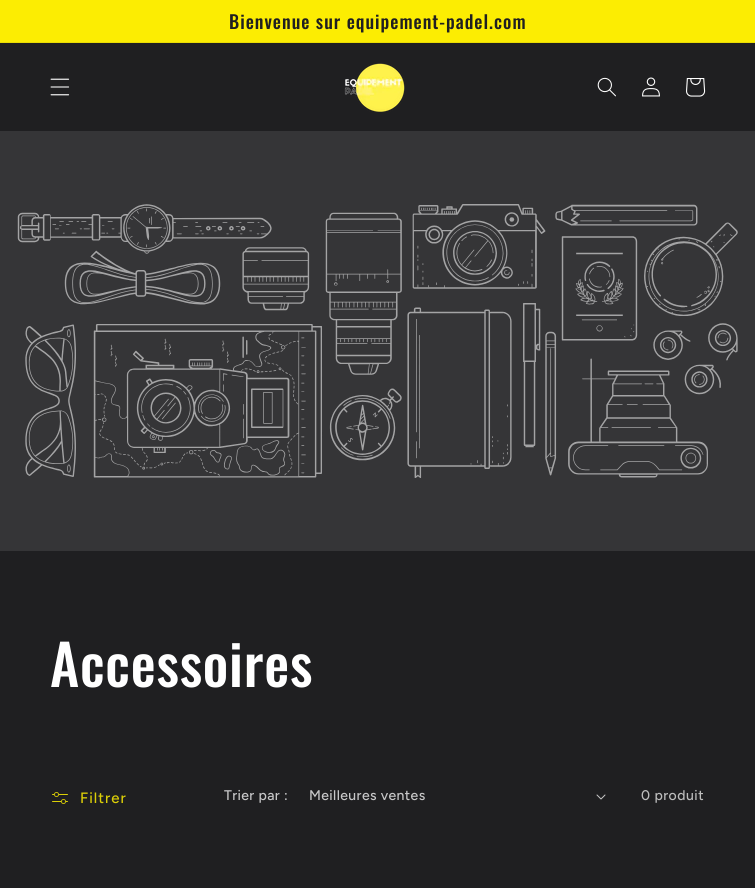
#include <cairo/cairo.h>
#include <math.h>
#include <stddef.h>

static cairo_t *cr;

static void use_color(int r, int g, int b) {
  cairo_set_source_rgb(cr, r / 255.0, g / 255.0, b / 255.0);
}

static void spaced_text(double x, double y, const char *s, double letter, double word) {
  cairo_move_to(cr, x, y);
  while (*s) {
    char ch[5] = {0};
    int n = 0;
    do ch[n++] = *s++; while ((*s & 0xC0) == 0x80);
    cairo_show_text(cr, ch);
    cairo_rel_move_to(cr, letter + word * (*ch == ' '), 0);
  }
}

static void box(double x, double y, double w, double h, int r, int g, int b) {
  use_color(r, g, b);
  cairo_rectangle(cr, x, y, w, h);
  cairo_fill(cr);
}

static void picture(const char *path, double x, double y, double w, double h) {
  cairo_surface_t *image = cairo_image_surface_create_from_png(path);
  cairo_save(cr);
  cairo_set_source_surface(cr, image, x, y);
  cairo_rectangle(cr, x, y, w, h);
  cairo_fill(cr);
  cairo_restore(cr);
  cairo_surface_destroy(image);
}

static void draw(void) {
  use_color(31, 31, 33);
  cairo_paint(cr);
  box(0, 0, 755, 42, 252, 237, 2);
  box(0, 42, 755, 1, 234, 221, 4);
  picture("img_01.png", 50, 78, 20, 18);
  picture("img_02.png", 344, 63, 61, 49);
  picture("img_03.png", 597, 77, 19, 20);
  picture("img_04.png", 642, 77, 18, 20);
  picture("img_05.png", 686, 78, 20, 19);
  box(0, 131, 755, 420, 53, 53, 55);
  picture("img_06.png", 17, 204, 721, 274);
  picture("img_07.png", 52, 792, 16, 12);
  picture("img_08.png", 596, 794, 10, 6);
  cairo_select_font_face(cr, "Oswald Medium", CAIRO_FONT_SLANT_NORMAL, CAIRO_FONT_WEIGHT_NORMAL);
  cairo_set_font_size(cr, 18.25);
  use_color(31, 31, 33);
  spaced_text(229, 29, "Bienvenue sur equipement-padel.com", 1, 0);
  cairo_set_font_size(cr, 56);
  use_color(255, 255, 255);
  spaced_text(50, 687, "Accessoires", 0.75, 0);
  cairo_select_font_face(cr, "Figtree Medium", CAIRO_FONT_SLANT_NORMAL, CAIRO_FONT_WEIGHT_NORMAL);
  cairo_set_font_size(cr, 15);
  use_color(219, 206, 7);
  spaced_text(80, 803, "Filtrer", 1, 0);
  cairo_set_font_size(cr, 14);
  use_color(199, 199, 200);
  spaced_text(224, 800, "Trier par :", 0.4, 0);
  spaced_text(309, 800, "Meilleures ventes", 0.4, 0);
  use_color(188, 188, 188);
  spaced_text(641, 800, "0 produit", 0.5, 0);
}

int main(void) {
  cairo_surface_t *surface = cairo_image_surface_create(CAIRO_FORMAT_RGB24, 755, 888);
  cr = cairo_create(surface);
  cairo_font_options_t *options = cairo_font_options_create();
  cairo_font_options_set_hint_metrics(options, CAIRO_HINT_METRICS_OFF);
  cairo_font_options_set_hint_style(options, CAIRO_HINT_STYLE_NONE);
  cairo_set_font_options(cr, options);
  cairo_set_miter_limit(cr, 4);
  draw();
  cairo_surface_write_to_png(surface, "out.png");
  cairo_font_options_destroy(options);
  cairo_destroy(cr);
  cairo_surface_destroy(surface);
  return 0;
}
